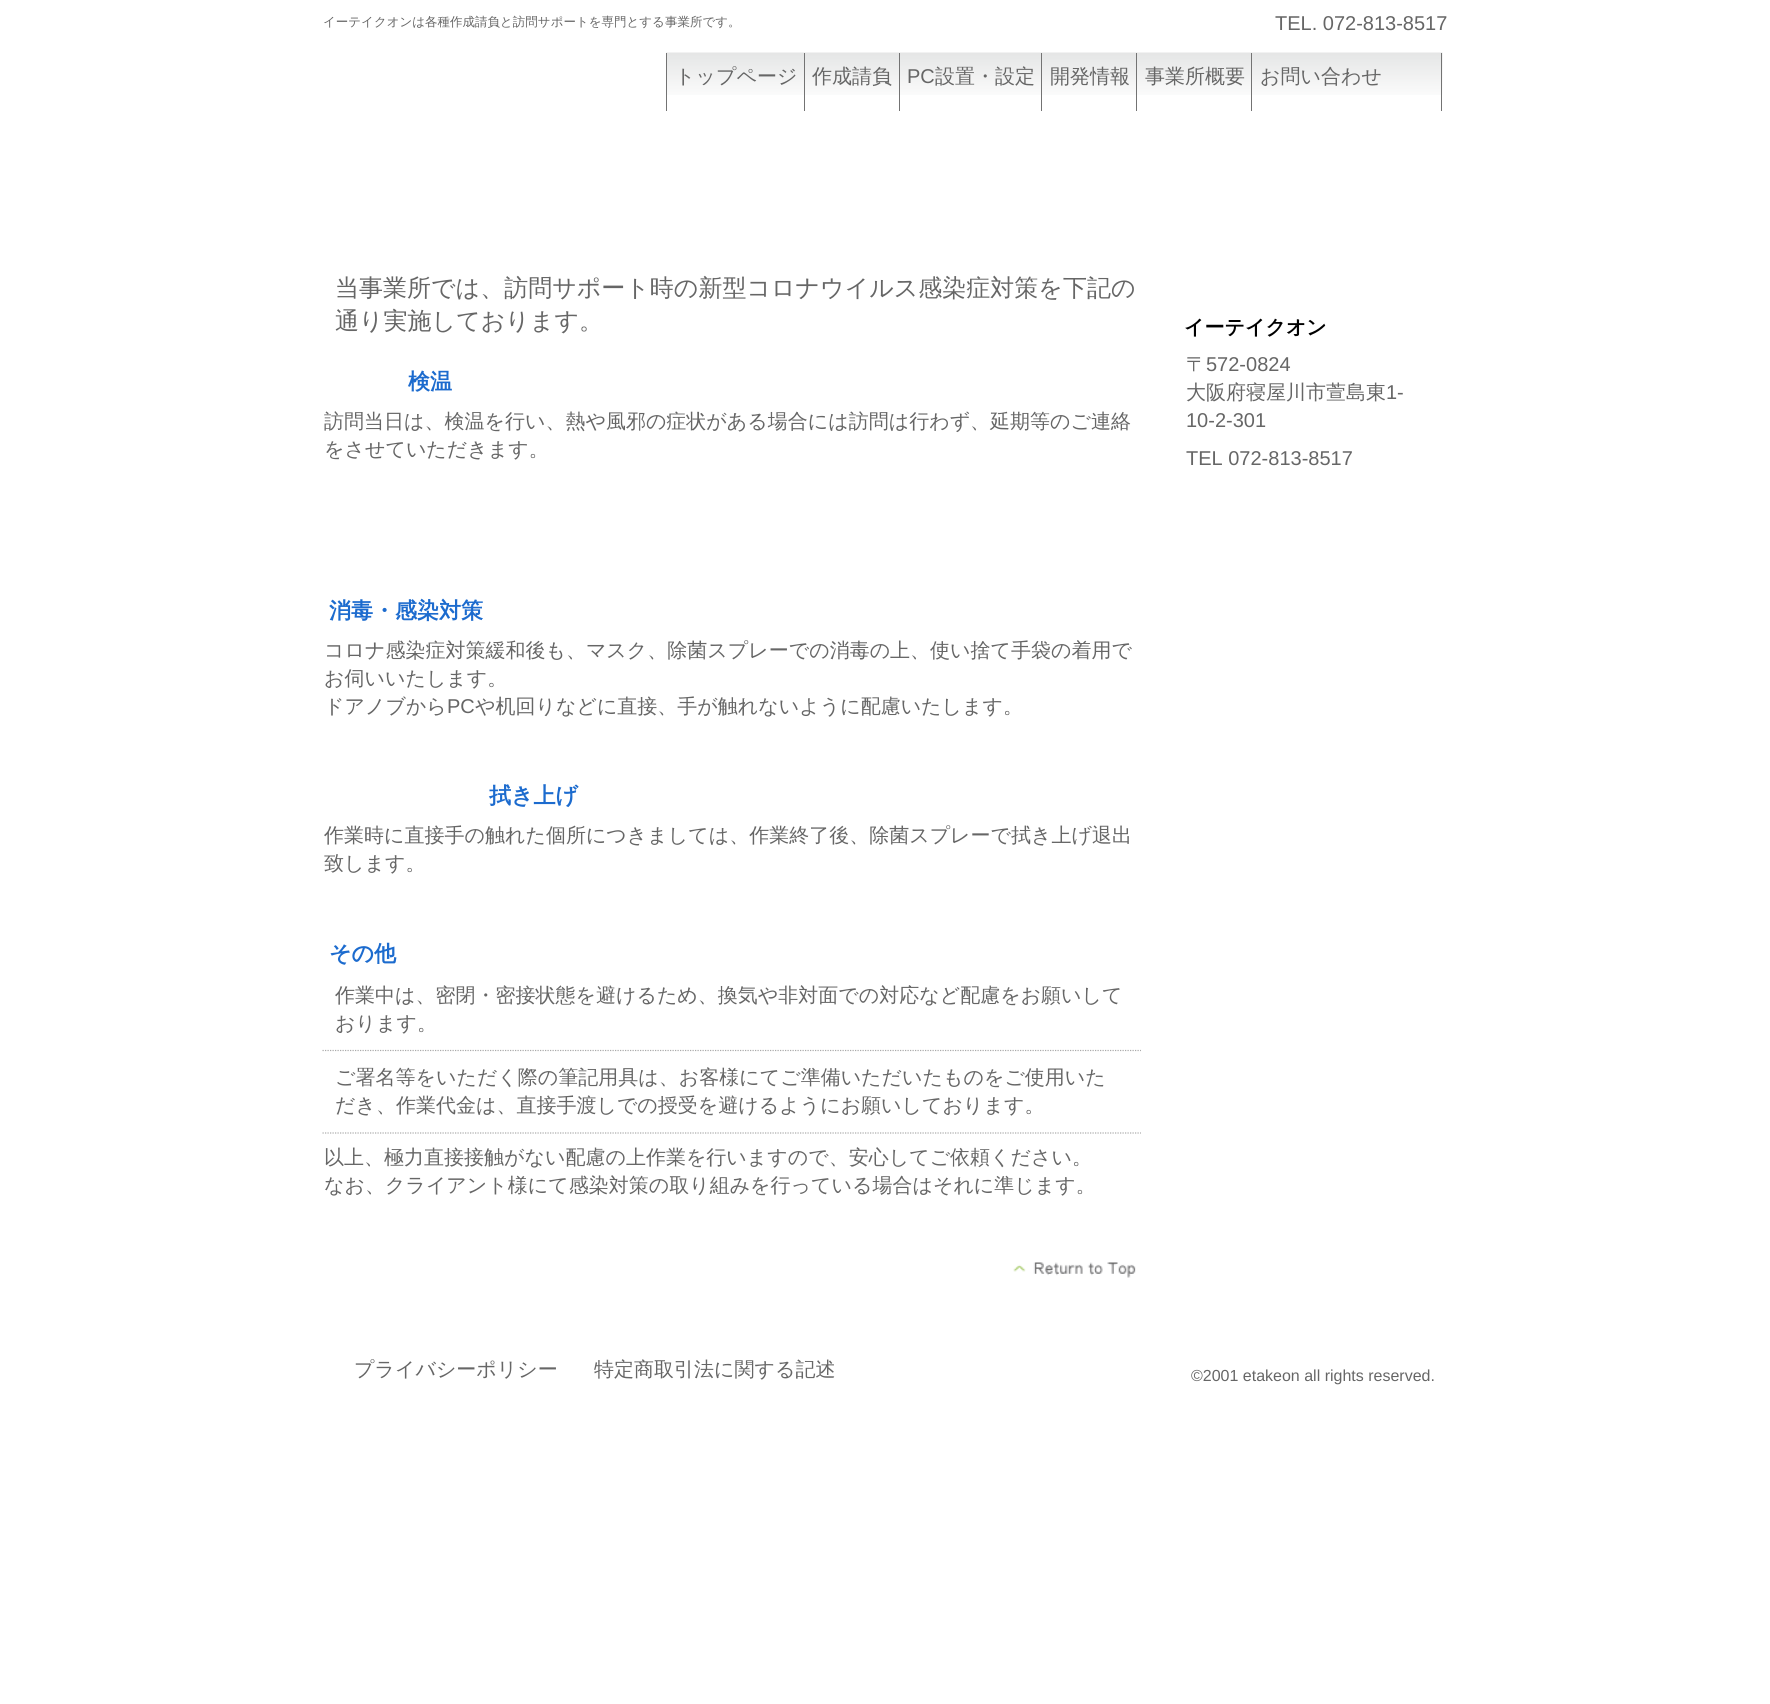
#include <cairo/cairo.h>
#include <math.h>
#include <stddef.h>

static cairo_t *cr;

static void use_color(int r, int g, int b) {
  cairo_set_source_rgb(cr, r / 255.0, g / 255.0, b / 255.0);
}

static void text(double x, double y, const char *s, const char *family, double size, int italic, int bold, int r, int g, int b) {
  cairo_select_font_face(cr, family, italic ? CAIRO_FONT_SLANT_ITALIC : CAIRO_FONT_SLANT_NORMAL,
    bold ? CAIRO_FONT_WEIGHT_BOLD : CAIRO_FONT_WEIGHT_NORMAL);
  cairo_set_font_size(cr, size);
  use_color(r, g, b);
  cairo_move_to(cr, x, y);
  cairo_show_text(cr, s);
}

static void box(double x, double y, double w, double h, int r, int g, int b) {
  use_color(r, g, b);
  cairo_rectangle(cr, x, y, w, h);
  cairo_fill(cr);
}

static void picture(const char *path, double x, double y, double w, double h) {
  cairo_surface_t *image = cairo_image_surface_create_from_png(path);
  cairo_save(cr);
  cairo_set_source_surface(cr, image, x, y);
  cairo_rectangle(cr, x, y, w, h);
  cairo_fill(cr);
  cairo_restore(cr);
  cairo_surface_destroy(image);
}

static void draw(void) {
  use_color(255, 255, 255);
  cairo_paint(cr);
  picture("img_01.png", 666, 52, 777, 43);
  box(1441, 53, 1, 58, 115, 115, 115);
  box(666, 53, 1, 58, 115, 115, 115);
  box(804, 53, 1, 58, 115, 115, 115);
  box(899, 53, 1, 58, 115, 115, 115);
  box(1041, 53, 1, 58, 115, 115, 115);
  box(1136, 53, 1, 58, 115, 115, 115);
  box(1251, 53, 1, 58, 115, 115, 115);
  cairo_new_path(cr);
  cairo_move_to(cr, 322.5, 1050.5);
  cairo_line_to(cr, 1141, 1050.5);
  use_color(170, 170, 170);
  cairo_set_line_width(cr, 1.2);
  cairo_set_dash(cr, (double[]){1.25, 1.25}, 2, 0);
  cairo_stroke(cr);
  cairo_new_path(cr);
  cairo_move_to(cr, 322.5, 1133);
  cairo_line_to(cr, 1141, 1133);
  cairo_stroke(cr);
  picture("img_02.png", 1013, 1262, 123, 16);
  text(323, 26, "イーテイクオンは各種作成請負と訪問サポートを専門とする事業所です。", "WenQuanYi Zen Hei Medium", 12.5, 0, 0, 102, 102, 102);
  text(1275, 30, "TEL. 072-813-8517", "Liberation Sans", 20, 0, 0, 102, 102, 102);
  text(675, 83, "トップページ", "WenQuanYi Zen Hei Medium", 20, 0, 0, 102, 102, 102);
  text(812, 83, "作成請負", "WenQuanYi Zen Hei Medium", 20, 0, 0, 102, 102, 102);
  text(907, 83, "PC", "Liberation Sans", 20, 0, 0, 102, 102, 102);
  text(935, 83, "設置・設定", "WenQuanYi Zen Hei Medium", 20, 0, 0, 102, 102, 102);
  text(1050, 83, "開発情報", "WenQuanYi Zen Hei Medium", 20, 0, 0, 102, 102, 102);
  text(1145, 83, "事業所概要", "WenQuanYi Zen Hei Medium", 20, 0, 0, 102, 102, 102);
  text(1260, 83, "お問い合わせ", "WenQuanYi Zen Hei Medium", 20, 0, 0, 102, 102, 102);
  text(335, 296, "当事業所では、訪問サポート時の新型コロナウイルス感染症対策を下記の", "WenQuanYi Zen Hei Medium", 24, 0, 0, 102, 102, 102);
  text(335, 329, "通り実施しております。", "WenQuanYi Zen Hei Medium", 24, 0, 0, 102, 102, 102);
  text(408, 389, "検温", "WenQuanYi Zen Hei", 22, 0, 1, 28, 107, 206);
  text(324, 428, "訪問当日は、検温を行い、熱や風邪の症状がある場合には訪問は行わず、延期等のご連絡", "WenQuanYi Zen Hei Medium", 20, 0, 0, 102, 102, 102);
  text(324, 456, "をさせていただきます。", "WenQuanYi Zen Hei Medium", 20, 0, 0, 102, 102, 102);
  text(329, 618, "消毒・感染対策", "WenQuanYi Zen Hei", 22, 0, 1, 28, 107, 206);
  text(324, 657, "コロナ感染症対策緩和後も、マスク、除菌スプレーでの消毒の上、使い捨て手袋の着用で", "WenQuanYi Zen Hei Medium", 20, 0, 0, 102, 102, 102);
  text(324, 685, "お伺いいたします。", "WenQuanYi Zen Hei Medium", 20, 0, 0, 102, 102, 102);
  text(324, 713, "ドアノブから", "WenQuanYi Zen Hei Medium", 20, 0, 0, 102, 102, 102);
  text(447, 713, "PC", "Liberation Sans", 20, 0, 0, 102, 102, 102);
  text(475, 713, "や机回りなどに直接、手が触れないように配慮いたします。", "WenQuanYi Zen Hei Medium", 20, 0, 0, 102, 102, 102);
  text(489, 803, "拭き上げ", "WenQuanYi Zen Hei", 22, 0, 1, 28, 107, 206);
  text(324, 842, "作業時に直接手の触れた個所につきましては、作業終了後、除菌スプレーで拭き上げ退出", "WenQuanYi Zen Hei Medium", 20, 0, 0, 102, 102, 102);
  text(324, 870, "致します。", "WenQuanYi Zen Hei Medium", 20, 0, 0, 102, 102, 102);
  text(329, 961, "その他", "WenQuanYi Zen Hei", 22, 0, 1, 28, 107, 206);
  text(335, 1002, "作業中は、密閉・密接状態を避けるため、換気や非対面での対応など配慮をお願いして", "WenQuanYi Zen Hei Medium", 20, 0, 0, 102, 102, 102);
  text(335, 1030, "おります。", "WenQuanYi Zen Hei Medium", 20, 0, 0, 102, 102, 102);
  text(335, 1084, "ご署名等をいただく際の筆記用具は、お客様にてご準備いただいたものをご使用いた", "WenQuanYi Zen Hei Medium", 20, 0, 0, 102, 102, 102);
  text(335, 1112, "だき、作業代金は、直接手渡しでの授受を避けるようにお願いしております。", "WenQuanYi Zen Hei Medium", 20, 0, 0, 102, 102, 102);
  text(324, 1164, "以上、極力直接接触がない配慮の上作業を行いますので、安心してご依頼ください。", "WenQuanYi Zen Hei Medium", 20, 0, 0, 102, 102, 102);
  text(324, 1192, "なお、クライアント様にて感染対策の取り組みを行っている場合はそれに準じます。", "WenQuanYi Zen Hei Medium", 20, 0, 0, 102, 102, 102);
  text(1184, 334, "イーテイクオン", "WenQuanYi Zen Hei", 20, 0, 1, 0, 0, 0);
  text(1186, 371, "〒", "WenQuanYi Zen Hei Medium", 20, 0, 0, 102, 102, 102);
  text(1206, 371, "572-0824", "Liberation Sans", 20, 0, 0, 102, 102, 102);
  text(1186, 399, "大阪府寝屋川市萱島東", "WenQuanYi Zen Hei Medium", 20, 0, 0, 102, 102, 102);
  text(1386, 399, "1-", "Liberation Sans", 20, 0, 0, 102, 102, 102);
  text(1186, 427, "10-2-301", "Liberation Sans", 20, 0, 0, 102, 102, 102);
  text(1186, 465, "TEL 072-813-8517", "Liberation Sans", 20, 0, 0, 102, 102, 102);
  text(354, 1376, "プライバシーポリシー", "WenQuanYi Zen Hei Medium", 20, 0, 0, 102, 102, 102);
  text(594, 1376, "特定商取引法に関する記述", "WenQuanYi Zen Hei Medium", 20, 0, 0, 102, 102, 102);
  text(1191, 1381, "©2001 etakeon all rights reserved.", "Liberation Sans", 16, 0, 0, 102, 102, 102);
}

int main(void) {
  cairo_surface_t *surface = cairo_image_surface_create(CAIRO_FORMAT_RGB24, 1770, 1704);
  cr = cairo_create(surface);
  cairo_font_options_t *options = cairo_font_options_create();
  cairo_font_options_set_hint_metrics(options, CAIRO_HINT_METRICS_OFF);
  cairo_font_options_set_hint_style(options, CAIRO_HINT_STYLE_NONE);
  cairo_set_font_options(cr, options);
  cairo_set_miter_limit(cr, 4);
  draw();
  cairo_surface_write_to_png(surface, "out.png");
  cairo_font_options_destroy(options);
  cairo_destroy(cr);
  cairo_surface_destroy(surface);
  return 0;
}
